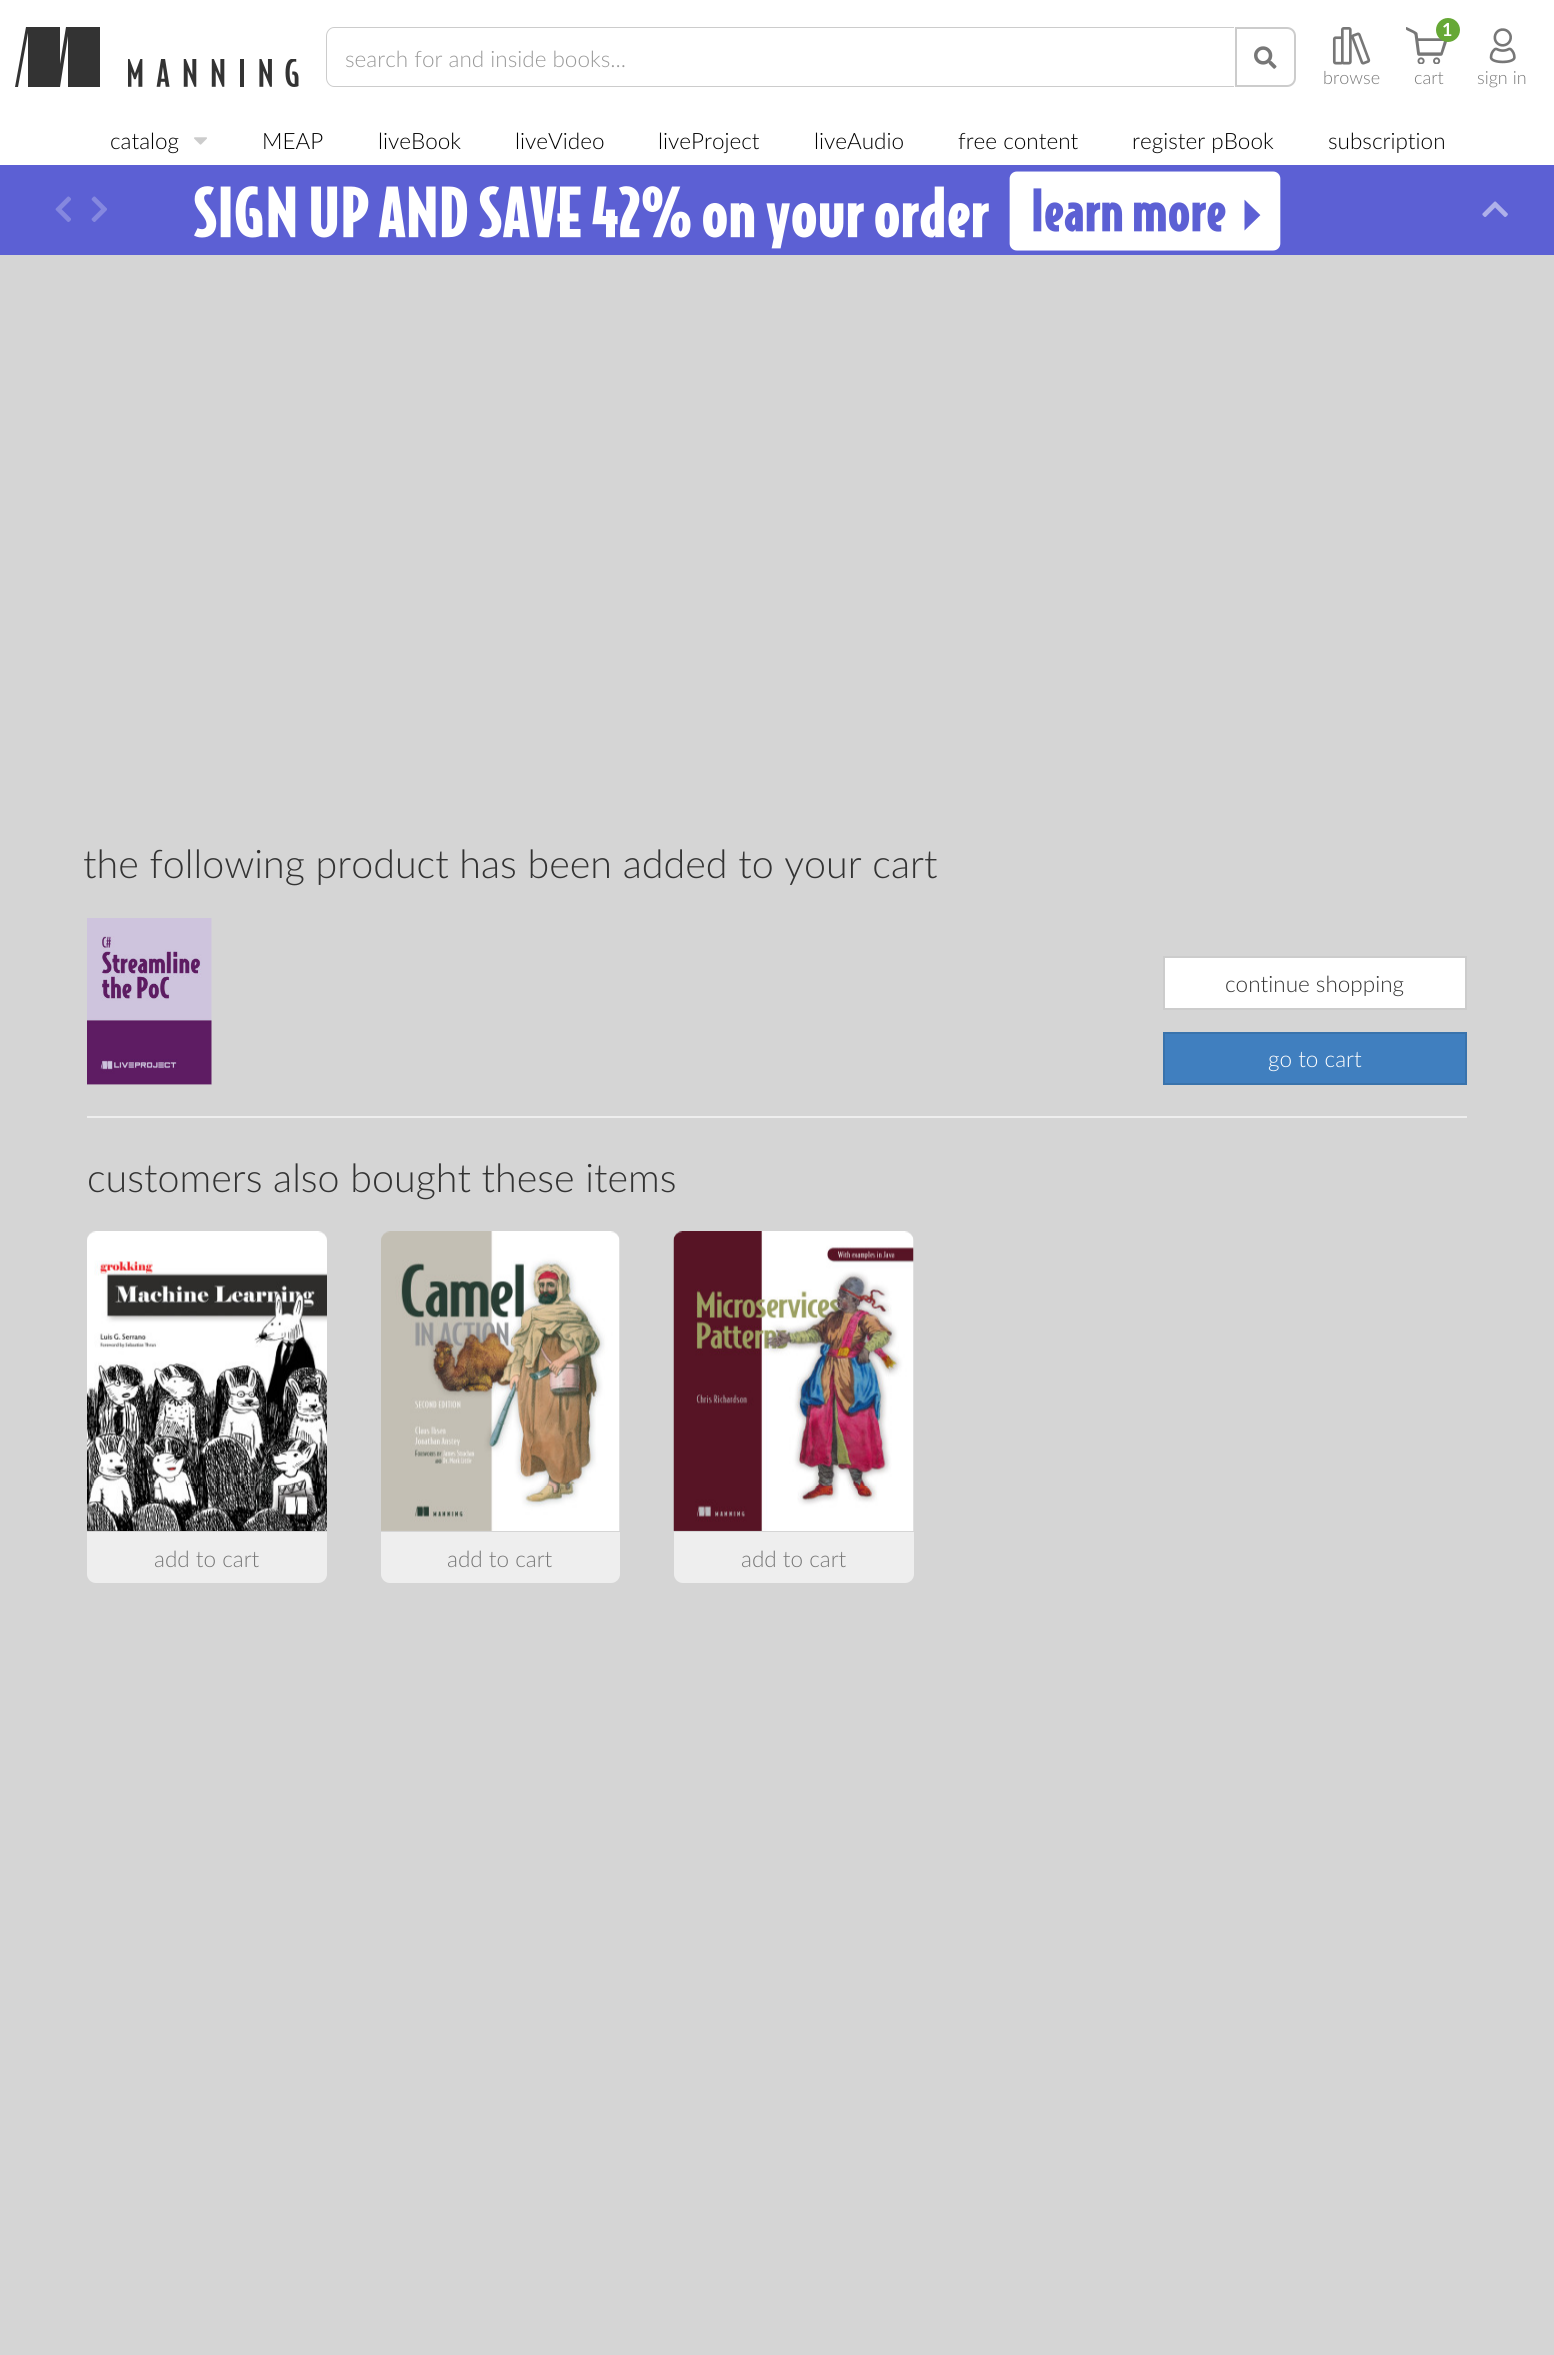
#include <cairo/cairo.h>
#include <math.h>
#include <stddef.h>

static cairo_t *cr;

static void use_color(int r, int g, int b) {
  cairo_set_source_rgb(cr, r / 255.0, g / 255.0, b / 255.0);
}

static void text(double x, double y, const char *s, const char *family, double size, int italic, int bold, int r, int g, int b) {
  cairo_select_font_face(cr, family, italic ? CAIRO_FONT_SLANT_ITALIC : CAIRO_FONT_SLANT_NORMAL,
    bold ? CAIRO_FONT_WEIGHT_BOLD : CAIRO_FONT_WEIGHT_NORMAL);
  cairo_set_font_size(cr, size);
  use_color(r, g, b);
  cairo_move_to(cr, x, y);
  cairo_show_text(cr, s);
}

static void box(double x, double y, double w, double h, int r, int g, int b) {
  use_color(r, g, b);
  cairo_rectangle(cr, x, y, w, h);
  cairo_fill(cr);
}

static void picture(const char *path, double x, double y, double w, double h) {
  cairo_surface_t *image = cairo_image_surface_create_from_png(path);
  cairo_save(cr);
  cairo_set_source_surface(cr, image, x, y);
  cairo_rectangle(cr, x, y, w, h);
  cairo_fill(cr);
  cairo_restore(cr);
  cairo_surface_destroy(image);
}

static void draw(void) {
  use_color(213, 213, 213);
  cairo_paint(cr);
  box(0, 0, 1554, 165, 255, 255, 255);
  use_color(51, 51, 51);
  cairo_set_fill_rule(cr, CAIRO_FILL_RULE_EVEN_ODD);
  cairo_new_path(cr);
  cairo_move_to(cr, 26, 27);
  cairo_line_to(cr, 60, 27);
  cairo_line_to(cr, 60, 64);
  cairo_line_to(cr, 66, 27);
  cairo_line_to(cr, 100, 27);
  cairo_line_to(cr, 100, 87);
  cairo_line_to(cr, 68, 87);
  cairo_line_to(cr, 68, 36);
  cairo_line_to(cr, 60, 87);
  cairo_line_to(cr, 28, 87);
  cairo_line_to(cr, 28, 33);
  cairo_line_to(cr, 18, 87);
  cairo_line_to(cr, 15, 87);
  cairo_line_to(cr, 26, 27);
  cairo_fill(cr);
  picture("img_01.png", 128, 59, 171, 28);
  use_color(204, 204, 204);
  cairo_new_path(cr);
  cairo_move_to(cr, 334, 27);
  cairo_line_to(cr, 1234, 27);
  cairo_line_to(cr, 1234, 87);
  cairo_line_to(cr, 334, 87);
  cairo_curve_to(cr, 330, 87, 326, 83, 326, 78);
  cairo_line_to(cr, 326, 36);
  cairo_curve_to(cr, 326, 31, 330, 27, 334, 27);
  cairo_close_path(cr);
  cairo_move_to(cr, 334, 28);
  cairo_line_to(cr, 1234, 28);
  cairo_line_to(cr, 1234, 86);
  cairo_line_to(cr, 334, 86);
  cairo_curve_to(cr, 330, 86, 327, 82, 327, 78);
  cairo_line_to(cr, 327, 36);
  cairo_curve_to(cr, 327, 32, 330, 28, 334, 28);
  cairo_close_path(cr);
  cairo_fill(cr);
  cairo_new_path(cr);
  cairo_move_to(cr, 1236, 28);
  cairo_line_to(cr, 1287, 28);
  cairo_curve_to(cr, 1291.5, 28, 1295, 31.5, 1295, 36);
  cairo_line_to(cr, 1295, 78);
  cairo_curve_to(cr, 1295, 82.5, 1291.5, 86, 1287, 86);
  cairo_line_to(cr, 1236, 86);
  cairo_close_path(cr);
  cairo_stroke(cr);
  picture("img_02.png", 1254, 46, 23, 23);
  picture("img_03.png", 1332, 27, 39, 38);
  picture("img_04.png", 1406, 27, 41, 37);
  use_color(102, 168, 53);
  cairo_arc(cr, 1448, 30, 12, 0, 2 * M_PI);
  cairo_fill(cr);
  picture("img_05.png", 1489, 28, 27, 36);
  picture("img_06.png", 194, 137, 13, 8);
  box(0, 165, 1554, 90, 92, 96, 212);
  picture("img_07.png", 194, 171, 1087, 80);
  picture("img_08.png", 55, 196, 16, 26);
  picture("img_09.png", 91, 196, 16, 26);
  picture("img_10.png", 1482, 201, 26, 16);
  picture("img_11.png", 87, 918, 125, 167);
  use_color(255, 255, 255);
  cairo_rectangle(cr, 1164, 957, 302, 52);
  cairo_fill_preserve(cr);
  use_color(204, 204, 204);
  cairo_stroke(cr);
  use_color(64, 127, 191);
  cairo_rectangle(cr, 1164, 1033, 302, 51);
  cairo_fill_preserve(cr);
  use_color(57, 115, 172);
  cairo_stroke(cr);
  box(87, 1116, 1380, 2, 238, 238, 238);
  picture("img_12.png", 87, 1231, 240, 300);
  cairo_new_path(cr);
  cairo_move_to(cr, 87, 1532);
  cairo_line_to(cr, 327, 1532);
  cairo_line_to(cr, 327, 1574);
  cairo_curve_to(cr, 327, 1579, 323, 1583, 318, 1583);
  cairo_line_to(cr, 96, 1583);
  cairo_curve_to(cr, 91, 1583, 87, 1579, 87, 1574);
  cairo_close_path(cr);
  cairo_fill(cr);
  picture("img_13.png", 381, 1231, 239, 300);
  cairo_new_path(cr);
  cairo_move_to(cr, 381, 1532);
  cairo_line_to(cr, 620, 1532);
  cairo_line_to(cr, 620, 1574);
  cairo_curve_to(cr, 620, 1579, 616, 1583, 611, 1583);
  cairo_line_to(cr, 390, 1583);
  cairo_curve_to(cr, 385, 1583, 381, 1579, 381, 1574);
  cairo_close_path(cr);
  cairo_fill(cr);
  picture("img_14.png", 673, 1231, 241, 300);
  cairo_new_path(cr);
  cairo_move_to(cr, 674, 1532);
  cairo_line_to(cr, 914, 1532);
  cairo_line_to(cr, 914, 1574);
  cairo_curve_to(cr, 914, 1579, 910, 1583, 905, 1583);
  cairo_line_to(cr, 683, 1583);
  cairo_curve_to(cr, 678, 1583, 674, 1579, 674, 1574);
  cairo_close_path(cr);
  cairo_fill(cr);
  text(345, 67, "search for and inside books...", "Lato Light", 22.5, 0, 0, 153, 153, 153);
  text(1323, 84, "browse", "Lato Light", 18, 0, 0, 119, 119, 119);
  text(1442, 36, "1", "Lato", 18, 0, 1, 255, 255, 255);
  text(1414, 84, "cart", "Lato Light", 18, 0, 0, 119, 119, 119);
  text(1477, 84, "sign in", "Lato Light", 18, 0, 0, 119, 119, 119);
  text(110, 149, "catalog", "Lato Light", 22.5, 0, 0, 0, 0, 0);
  text(262, 149, "MEAP", "Lato Light", 22.5, 0, 0, 0, 0, 0);
  text(378, 149, "liveBook", "Lato Light", 22.5, 0, 0, 0, 0, 0);
  text(515, 149, "liveVideo", "Lato Light", 22.5, 0, 0, 0, 0, 0);
  text(658, 149, "liveProject", "Lato Light", 22.5, 0, 0, 0, 0, 0);
  text(814, 149, "liveAudio", "Lato Light", 22.5, 0, 0, 0, 0, 0);
  text(958, 149, "free content", "Lato Light", 22.5, 0, 0, 0, 0, 0);
  text(1132, 149, "register pBook", "Lato Light", 22.5, 0, 0, 0, 0, 0);
  text(1328, 149, "subscription", "Lato Light", 22.5, 0, 0, 0, 0, 0);
  text(83, 878, "the following product has been added to your cart", "Lato Light", 39.4, 0, 0, 51, 51, 51);
  text(1225, 992, "continue shopping", "Lato Light", 22.5, 0, 0, 51, 51, 51);
  text(1268, 1067, "go to cart", "Lato Light", 22.5, 0, 0, 255, 255, 255);
  text(87, 1192, "customers also bought these items", "Lato Light", 39.4, 0, 0, 51, 51, 51);
  text(154, 1567, "add to cart", "Lato Light", 22.5, 0, 0, 119, 119, 119);
  text(447, 1567, "add to cart", "Lato Light", 22.5, 0, 0, 119, 119, 119);
  text(741, 1567, "add to cart", "Lato Light", 22.5, 0, 0, 119, 119, 119);
}

int main(void) {
  cairo_surface_t *surface = cairo_image_surface_create(CAIRO_FORMAT_RGB24, 1554, 2355);
  cr = cairo_create(surface);
  cairo_font_options_t *options = cairo_font_options_create();
  cairo_font_options_set_hint_metrics(options, CAIRO_HINT_METRICS_OFF);
  cairo_font_options_set_hint_style(options, CAIRO_HINT_STYLE_NONE);
  cairo_set_font_options(cr, options);
  cairo_set_miter_limit(cr, 4);
  draw();
  cairo_surface_write_to_png(surface, "out.png");
  cairo_font_options_destroy(options);
  cairo_destroy(cr);
  cairo_surface_destroy(surface);
  return 0;
}
